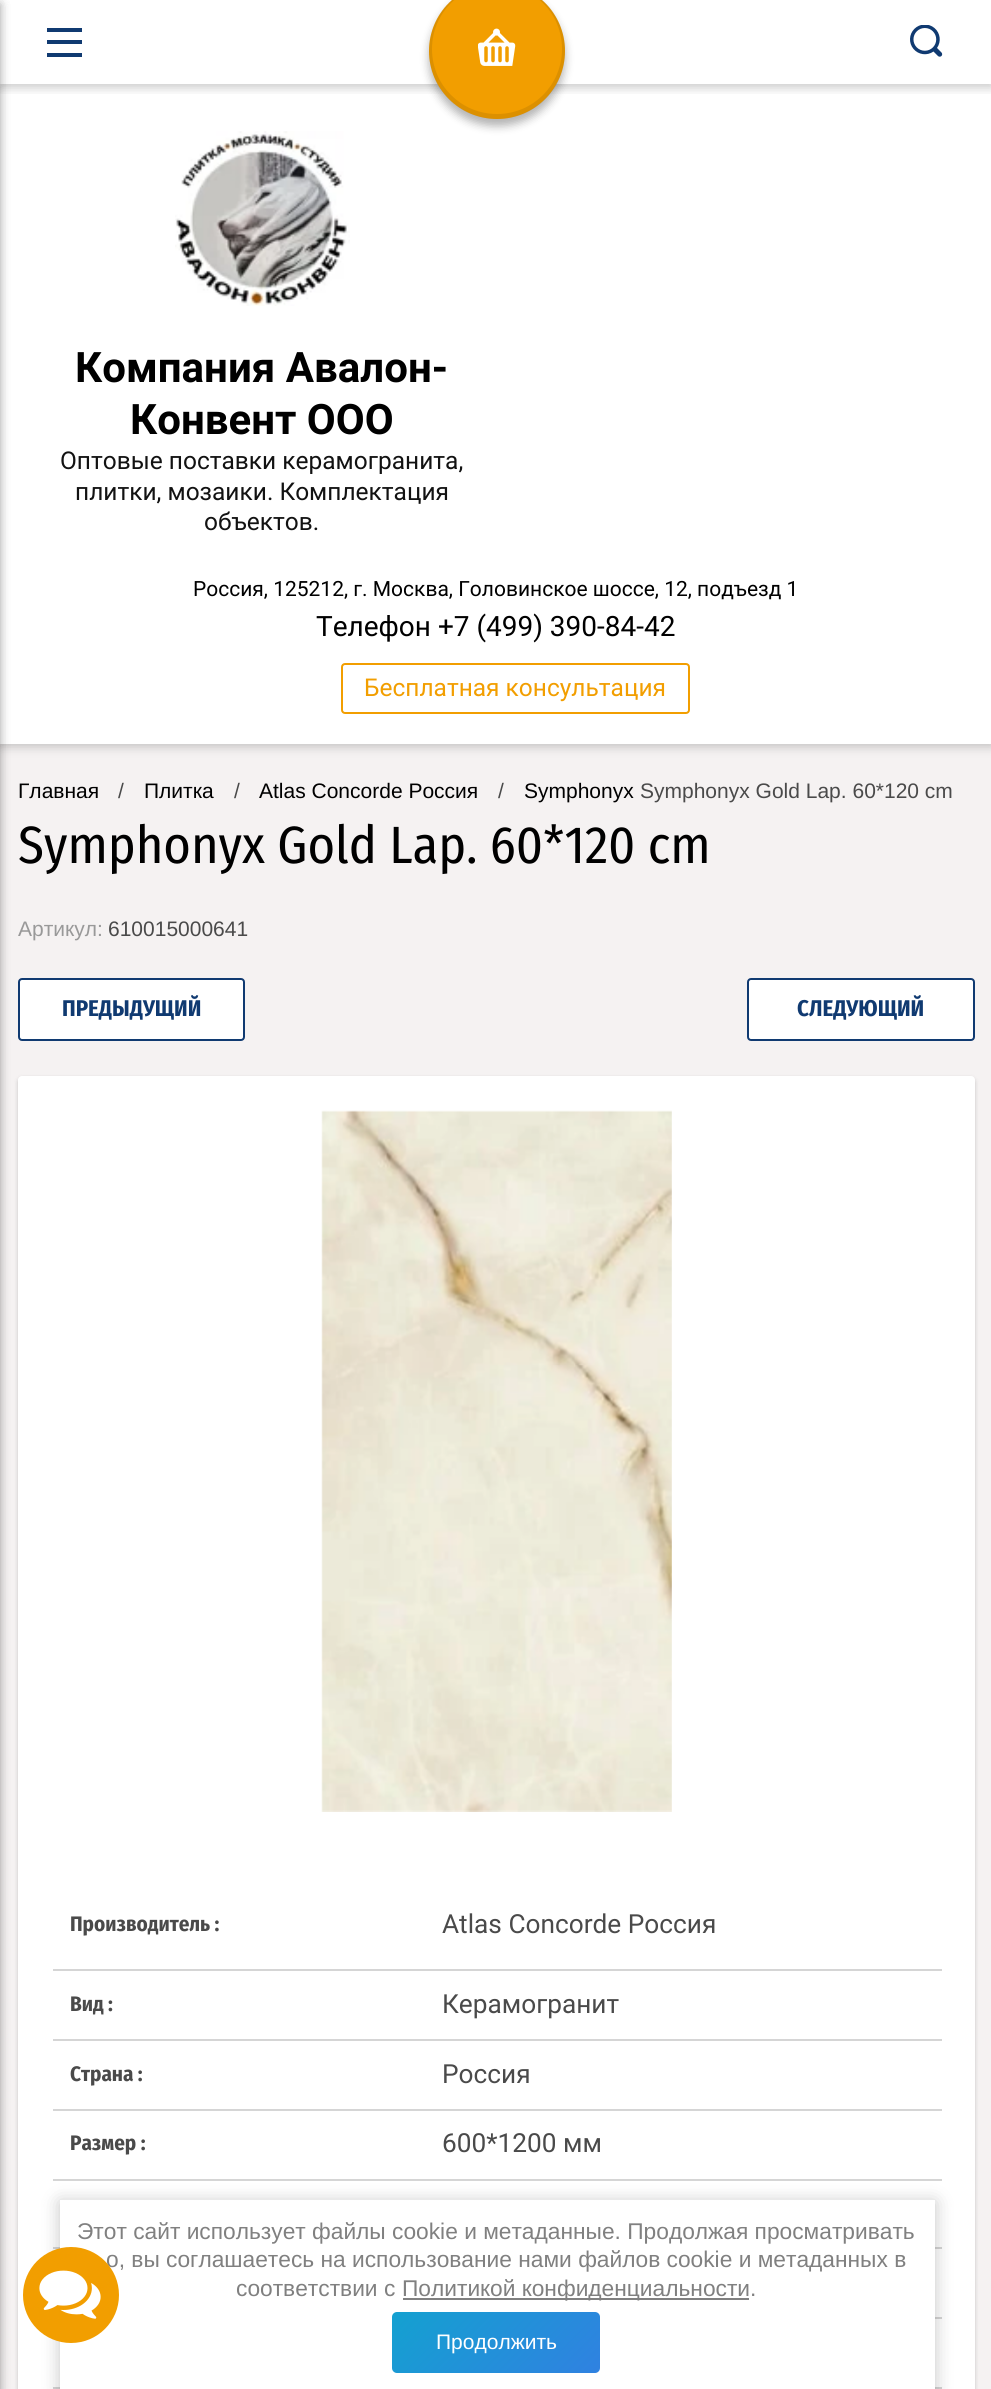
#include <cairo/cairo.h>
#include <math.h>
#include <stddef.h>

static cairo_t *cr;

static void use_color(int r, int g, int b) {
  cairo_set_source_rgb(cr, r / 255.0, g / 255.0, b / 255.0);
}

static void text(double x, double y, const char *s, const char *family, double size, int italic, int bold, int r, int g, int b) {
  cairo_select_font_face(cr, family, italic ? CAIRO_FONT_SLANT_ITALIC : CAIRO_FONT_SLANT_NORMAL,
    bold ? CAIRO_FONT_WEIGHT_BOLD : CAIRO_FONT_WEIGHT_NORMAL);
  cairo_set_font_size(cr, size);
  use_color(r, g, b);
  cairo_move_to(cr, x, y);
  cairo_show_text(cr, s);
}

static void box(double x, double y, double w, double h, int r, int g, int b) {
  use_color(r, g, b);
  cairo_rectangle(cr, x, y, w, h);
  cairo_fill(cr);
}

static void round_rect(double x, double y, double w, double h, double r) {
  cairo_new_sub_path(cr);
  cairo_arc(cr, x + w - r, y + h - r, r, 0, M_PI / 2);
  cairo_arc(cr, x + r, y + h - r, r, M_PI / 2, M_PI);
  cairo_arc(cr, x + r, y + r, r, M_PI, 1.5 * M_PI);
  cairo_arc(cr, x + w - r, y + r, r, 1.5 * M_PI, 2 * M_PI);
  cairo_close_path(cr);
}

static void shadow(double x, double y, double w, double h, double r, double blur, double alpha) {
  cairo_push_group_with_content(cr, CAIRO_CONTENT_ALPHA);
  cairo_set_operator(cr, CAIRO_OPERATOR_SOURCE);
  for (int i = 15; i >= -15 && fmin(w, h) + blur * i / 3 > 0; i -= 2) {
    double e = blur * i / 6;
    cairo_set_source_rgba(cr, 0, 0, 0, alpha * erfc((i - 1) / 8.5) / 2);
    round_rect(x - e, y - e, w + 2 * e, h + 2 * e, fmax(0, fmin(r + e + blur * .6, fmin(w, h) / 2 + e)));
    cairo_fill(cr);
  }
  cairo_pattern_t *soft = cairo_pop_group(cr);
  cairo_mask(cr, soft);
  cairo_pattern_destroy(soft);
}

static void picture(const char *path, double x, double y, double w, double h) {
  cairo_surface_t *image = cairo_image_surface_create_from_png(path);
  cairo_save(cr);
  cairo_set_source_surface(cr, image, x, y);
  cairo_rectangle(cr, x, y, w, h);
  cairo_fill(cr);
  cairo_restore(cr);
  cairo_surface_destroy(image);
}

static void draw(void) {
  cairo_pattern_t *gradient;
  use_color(245, 242, 242);
  cairo_paint(cr);
  use_color(0, 0, 0);
  shadow(0, 4, 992, 743, 0, 5, 0.2);
  box(0, 0, 991, 744, 255, 255, 255);
  use_color(0, 0, 0);
  shadow(-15, 4, 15, 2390, 0, 5, 0.2);
  shadow(-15, 4, 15, 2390, 0, 5, 0.2);
  cairo_save(cr);
  cairo_rectangle(cr, 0, 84, 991, 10);
  cairo_clip(cr);
  shadow(0, 4, 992, 84, 0, 5, 0.2);
  cairo_restore(cr);
  shadow(429, -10, 136, 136, 68, 4.5, 0.3);
  use_color(242, 158, 0);
  cairo_arc(cr, 497, 51, 68, 0, 2 * M_PI);
  cairo_fill(cr);
  cairo_set_source_rgba(cr, 0, 0, 0, 0.09);
  cairo_set_fill_rule(cr, CAIRO_FILL_RULE_EVEN_ODD);
  cairo_new_path(cr);
  cairo_move_to(cr, 497, -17);
  cairo_curve_to(cr, 459, -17, 429, 13, 429, 51);
  cairo_curve_to(cr, 429, 89, 459, 119, 497, 119);
  cairo_curve_to(cr, 535, 119, 565, 89, 565, 51);
  cairo_curve_to(cr, 565, 13, 535, -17, 497, -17);
  cairo_close_path(cr);
  cairo_move_to(cr, 497, -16);
  cairo_curve_to(cr, 461, -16, 432, 13, 432, 49);
  cairo_curve_to(cr, 432, 85, 461, 114, 497, 114);
  cairo_curve_to(cr, 533, 114, 562, 85, 562, 49);
  cairo_curve_to(cr, 562, 13, 533, -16, 497, -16);
  cairo_close_path(cr);
  cairo_fill(cr);
  picture("img_01.png", 478, 28, 38, 38);
  box(47, 28, 35, 4, 16, 58, 113);
  box(47, 53, 35, 4, 16, 58, 113);
  box(47, 40, 35, 4, 16, 58, 113);
  picture("img_02.png", 910, 25, 33, 32);
  picture("img_03.png", 175, 131, 175, 175);
  round_rect(342, 664, 347, 49, 3);
  use_color(242, 158, 0);
  cairo_stroke(cr);
  use_color(255, 255, 255);
  round_rect(19, 979, 225, 61, 3);
  cairo_fill_preserve(cr);
  use_color(16, 58, 113);
  cairo_stroke(cr);
  use_color(255, 255, 255);
  round_rect(748, 979, 226, 61, 3);
  cairo_fill_preserve(cr);
  use_color(16, 58, 113);
  cairo_stroke(cr);
  use_color(0, 0, 0);
  shadow(18, 1078, 957, 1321, 4, 2, 0.2);
  use_color(255, 255, 255);
  round_rect(18, 1076, 957, 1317, 4);
  cairo_fill(cr);
  picture("img_04.png", 321, 1110, 351, 702);
  box(53, 1969, 889, 2, 213, 213, 213);
  box(53, 2039, 889, 2, 213, 213, 213);
  box(53, 2109, 889, 2, 213, 213, 213);
  box(53, 2179, 889, 2, 213, 213, 213);
  box(53, 2247, 889, 2, 213, 213, 213);
  box(935, 2317, 7, 2, 213, 213, 213);
  box(53, 2387, 889, 2, 213, 213, 213);
  use_color(0, 0, 0);
  shadow(60, 2202, 875, 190, 0, 9, 0.23);
  box(60, 2200, 875, 189, 255, 255, 255);
  box(403, 2298, 346, 2, 128, 128, 128);
  gradient = cairo_pattern_create_linear(429, 2275, 564, 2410);
  cairo_pattern_add_color_stop_rgba(gradient, 0, 0.078, 0.631, 0.816, 1);
  cairo_pattern_add_color_stop_rgba(gradient, 1, 0.188, 0.506, 0.882, 1);
  cairo_set_source(cr, gradient);
  cairo_pattern_destroy(gradient);
  round_rect(392, 2312, 208, 61, 5);
  cairo_fill(cr);
  text(75, 382, "Компания Авалон-", "Roboto", 42, 0, 1, 0, 0, 0);
  text(130, 434, "Конвент ООО", "Roboto", 42, 0, 1, 0, 0, 0);
  text(60, 469, "Оптовые поставки керамогранита,", "Roboto", 24.5, 0, 0, 18, 18, 18);
  text(75, 500, "плитки, мозаики. Комплектация", "Roboto", 24.5, 0, 0, 18, 18, 18);
  text(204, 530, "объектов.", "Roboto", 24.5, 0, 0, 18, 18, 18);
  text(193, 596, "Россия, 125212, г. Москва, Головинское шоссе, 12, подъезд 1", "Roboto", 21, 0, 0, 0, 0, 0);
  text(316, 636, "Телефон +7 (499) 390-84-42", "Roboto", 28, 0, 0, 0, 0, 0);
  text(364, 696, "Бесплатная консультация", "Roboto", 24.5, 0, 0, 242, 158, 0);
  text(18, 798, "Главная", "Liberation Sans", 21, 0, 0, 0, 0, 0);
  text(118, 798, "/", "Liberation Sans", 21, 0, 0, 74, 74, 74);
  text(144, 798, "Плитка", "Liberation Sans", 21, 0, 0, 0, 0, 0);
  text(234, 798, "/", "Liberation Sans", 21, 0, 0, 74, 74, 74);
  text(259, 798, "Atlas Concorde Россия", "Liberation Sans", 21, 0, 0, 0, 0, 0);
  text(498, 798, "/", "Liberation Sans", 21, 0, 0, 74, 74, 74);
  text(524, 798, "Symphonyx", "Liberation Sans", 21, 0, 0, 0, 0, 0);
  text(640, 798, "Symphonyx Gold Lap. 60*120 cm", "Liberation Sans", 21, 0, 0, 74, 74, 74);
  text(18, 863, "Symphonyx Gold Lap. 60*120 cm", "Fira Sans Condensed", 52.5, 0, 0, 0, 0, 0);
  text(18, 936, "Артикул:", "Liberation Sans", 21, 0, 0, 153, 153, 153);
  text(108, 936, "610015000641", "Liberation Sans", 21, 0, 0, 74, 74, 74);
  text(62, 1016, "ПРЕДЫДУЩИЙ", "Fira Sans Condensed", 22.75, 0, 1, 16, 58, 113);
  text(797, 1016, "СЛЕДУЮЩИЙ", "Fira Sans Condensed", 22.75, 0, 1, 16, 58, 113);
  text(70, 1931, "Производитель :", "Fira Sans Condensed", 21, 0, 1, 74, 74, 74);
  text(442, 1933, "Atlas Concorde Россия", "Roboto", 26.25, 0, 0, 74, 74, 74);
  text(70, 2011, "Вид :", "Fira Sans Condensed", 21, 0, 1, 74, 74, 74);
  text(442, 2013, "Керамогранит", "Roboto", 26.25, 0, 0, 74, 74, 74);
  text(70, 2081, "Страна :", "Fira Sans Condensed", 21, 0, 1, 74, 74, 74);
  text(442, 2083, "Россия", "Roboto", 26.25, 0, 0, 74, 74, 74);
  text(70, 2150, "Размер :", "Fira Sans Condensed", 21, 0, 1, 74, 74, 74);
  text(442, 2152, "600*1200 мм", "Roboto", 26.25, 0, 0, 74, 74, 74);
  text(77, 2239, "Этот сайт использует файлы cookie и метаданные. Продолжая просматривать", "Liberation Sans", 22.75, 0, 0, 128, 128, 128);
  text(106, 2267, "о, вы соглашаетесь на использование нами файлов cookie и метаданных в", "Liberation Sans", 22.75, 0, 0, 128, 128, 128);
  use_color(242, 158, 0);
  cairo_new_path(cr);
  cairo_arc(cr, 71, 2295, 48, 0, 2 * M_PI);
  cairo_fill(cr);
  picture("img_05.png", 39, 2270, 62, 49);
  text(236, 2296, "соответствии с", "Liberation Sans", 22.75, 0, 0, 128, 128, 128);
  text(402, 2296, "Политикой конфиденциальности.", "Liberation Sans", 22.75, 0, 0, 128, 128, 128);
  text(436, 2349, "Продолжить", "Liberation Sans", 21, 0, 0, 255, 255, 255);
}

int main(void) {
  cairo_surface_t *surface = cairo_image_surface_create(CAIRO_FORMAT_RGB24, 991, 2389);
  cr = cairo_create(surface);
  cairo_font_options_t *options = cairo_font_options_create();
  cairo_font_options_set_hint_metrics(options, CAIRO_HINT_METRICS_OFF);
  cairo_font_options_set_hint_style(options, CAIRO_HINT_STYLE_NONE);
  cairo_set_font_options(cr, options);
  cairo_set_miter_limit(cr, 4);
  draw();
  cairo_surface_write_to_png(surface, "out.png");
  cairo_font_options_destroy(options);
  cairo_destroy(cr);
  cairo_surface_destroy(surface);
  return 0;
}
